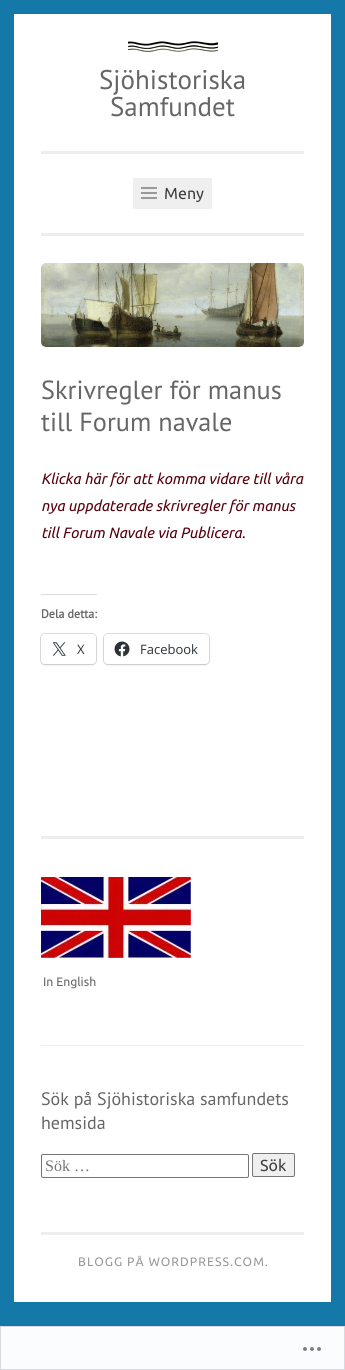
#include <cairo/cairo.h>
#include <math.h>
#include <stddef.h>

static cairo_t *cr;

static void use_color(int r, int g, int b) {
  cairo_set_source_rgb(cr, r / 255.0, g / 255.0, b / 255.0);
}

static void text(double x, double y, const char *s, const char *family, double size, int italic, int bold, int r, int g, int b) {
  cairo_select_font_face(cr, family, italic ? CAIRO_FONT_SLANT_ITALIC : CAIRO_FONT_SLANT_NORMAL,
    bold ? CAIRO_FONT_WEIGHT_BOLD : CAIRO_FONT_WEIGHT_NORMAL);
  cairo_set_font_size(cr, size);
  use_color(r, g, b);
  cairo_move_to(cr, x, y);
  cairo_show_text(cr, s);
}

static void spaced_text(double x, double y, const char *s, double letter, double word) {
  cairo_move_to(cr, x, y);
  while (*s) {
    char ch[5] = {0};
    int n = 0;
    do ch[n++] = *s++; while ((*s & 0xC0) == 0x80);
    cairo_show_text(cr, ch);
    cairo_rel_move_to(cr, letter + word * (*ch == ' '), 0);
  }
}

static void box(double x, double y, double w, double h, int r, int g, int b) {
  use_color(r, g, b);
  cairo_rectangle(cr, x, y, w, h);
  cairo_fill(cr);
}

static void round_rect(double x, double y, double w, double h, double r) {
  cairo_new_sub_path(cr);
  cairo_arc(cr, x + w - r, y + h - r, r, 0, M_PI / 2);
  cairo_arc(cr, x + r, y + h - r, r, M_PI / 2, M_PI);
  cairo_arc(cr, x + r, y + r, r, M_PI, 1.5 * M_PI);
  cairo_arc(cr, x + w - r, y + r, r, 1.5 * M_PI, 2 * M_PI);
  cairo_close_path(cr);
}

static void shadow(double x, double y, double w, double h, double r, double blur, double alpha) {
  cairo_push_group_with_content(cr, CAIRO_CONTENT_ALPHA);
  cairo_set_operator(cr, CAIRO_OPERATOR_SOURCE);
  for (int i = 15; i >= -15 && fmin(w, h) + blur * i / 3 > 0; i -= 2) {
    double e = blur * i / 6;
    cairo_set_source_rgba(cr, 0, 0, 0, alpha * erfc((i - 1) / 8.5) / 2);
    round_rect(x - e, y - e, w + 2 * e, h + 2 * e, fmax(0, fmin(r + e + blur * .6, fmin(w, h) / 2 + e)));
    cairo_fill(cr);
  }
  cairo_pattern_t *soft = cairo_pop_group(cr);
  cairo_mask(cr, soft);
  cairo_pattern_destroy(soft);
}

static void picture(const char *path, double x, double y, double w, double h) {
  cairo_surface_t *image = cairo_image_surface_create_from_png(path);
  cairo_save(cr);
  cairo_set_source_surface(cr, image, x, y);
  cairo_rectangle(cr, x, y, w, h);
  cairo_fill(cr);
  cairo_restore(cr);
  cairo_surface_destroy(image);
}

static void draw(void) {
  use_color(20, 121, 168);
  cairo_paint(cr);
  box(14, 14, 317, 1288, 255, 255, 255);
  box(41, 233, 263, 3, 238, 238, 238);
  picture("img_01.png", 128, 41, 90, 11);
  box(41, 151, 263, 3, 238, 238, 238);
  box(133, 178, 79, 31, 239, 239, 239);
  picture("img_02.png", 141, 187, 16, 12);
  picture("img_03.png", 41, 263, 263, 84);
  box(41, 594, 56, 1, 220, 220, 222);
  round_rect(40.5, 633.5, 56, 31, 4.5);
  use_color(224, 224, 224);
  cairo_set_line_width(cr, 1);
  cairo_stroke(cr);
  use_color(0, 0, 0);
  shadow(41, 635, 55, 30, 4, 1, 0.12);
  use_color(255, 255, 255);
  round_rect(41, 634, 55, 30, 4);
  cairo_fill(cr);
  picture("img_04.png", 52, 642, 14, 14);
  round_rect(103.5, 633.5, 106, 31, 4.5);
  use_color(224, 224, 224);
  cairo_stroke(cr);
  use_color(0, 0, 0);
  shadow(104, 635, 105, 30, 4, 1, 0.12);
  use_color(255, 255, 255);
  round_rect(104, 634, 105, 30, 4);
  cairo_fill(cr);
  picture("img_05.png", 114, 641, 16, 16);
  box(41, 836, 263, 3, 238, 238, 238);
  box(41, 1045, 263, 1, 238, 238, 238);
  picture("img_06.png", 41, 877, 150, 81);
  round_rect(41.5, 1154.5, 207, 23, 1.5);
  use_color(118, 118, 118);
  cairo_stroke(cr);
  use_color(239, 239, 239);
  round_rect(252.5, 1153.5, 42, 23, 1.5);
  cairo_fill_preserve(cr);
  use_color(118, 118, 118);
  cairo_stroke(cr);
  box(41, 1232, 263, 3, 238, 238, 238);
  use_color(250, 252, 253);
  cairo_rectangle(cr, 0.5, 1326.5, 344, 43);
  cairo_fill_preserve(cr);
  use_color(216, 218, 221);
  cairo_stroke(cr);
  picture("img_07.png", 303, 1347, 18, 4);
  text(99, 89, "Sjöhistoriska", "PT Sans", 27, 0, 0, 102, 102, 102);
  text(110, 116, "Samfundet", "PT Sans", 27, 0, 0, 102, 102, 102);
  text(164, 199, "Meny", "Ubuntu", 16, 0, 0, 64, 64, 64);
  text(41, 399, "Skrivregler för manus", "PT Sans", 26.25, 0, 0, 102, 102, 102);
  text(41, 431, "till Forum navale", "PT Sans", 26.25, 0, 0, 102, 102, 102);
  text(41, 484, "Klicka här för att komma vidare till våra", "Ubuntu", 15, 1, 0, 87, 1, 14);
  text(41, 511, "nya uppdaterade skrivregler för manus", "Ubuntu", 15, 1, 0, 87, 1, 14);
  text(41, 538, "till Forum Navale via Publicera.", "Ubuntu", 15, 1, 0, 87, 1, 14);
  text(41, 618, "Dela detta:", "PT Sans", 12, 0, 1, 102, 102, 102);
  text(77, 654, "X", "Open Sans", 13, 0, 0, 44, 51, 56);
  text(140, 654, "Facebook", "Open Sans", 13, 0, 0, 44, 51, 56);
  text(43, 986, "In English", "Ubuntu", 12.25, 0, 0, 102, 102, 102);
  text(41, 1105, "Sök på Sjöhistoriska samfundets", "PT Sans", 18, 0, 0, 102, 102, 102);
  text(41, 1129, "hemsida", "PT Sans", 18, 0, 0, 102, 102, 102);
  text(45, 1171, "Sök …", "Liberation Serif", 16, 0, 0, 117, 117, 117);
  text(260, 1171, "Sök", "Ubuntu", 16, 0, 0, 64, 64, 64);
  cairo_set_font_size(cr, 12.25);
  use_color(153, 153, 153);
  spaced_text(78, 1266, "BLOGG PÅ WORDPRESS.COM.", 1, 0);
}

int main(void) {
  cairo_surface_t *surface = cairo_image_surface_create(CAIRO_FORMAT_RGB24, 345, 1370);
  cr = cairo_create(surface);
  cairo_font_options_t *options = cairo_font_options_create();
  cairo_font_options_set_hint_metrics(options, CAIRO_HINT_METRICS_OFF);
  cairo_font_options_set_hint_style(options, CAIRO_HINT_STYLE_NONE);
  cairo_set_font_options(cr, options);
  cairo_set_miter_limit(cr, 4);
  draw();
  cairo_surface_write_to_png(surface, "out.png");
  cairo_font_options_destroy(options);
  cairo_destroy(cr);
  cairo_surface_destroy(surface);
  return 0;
}
